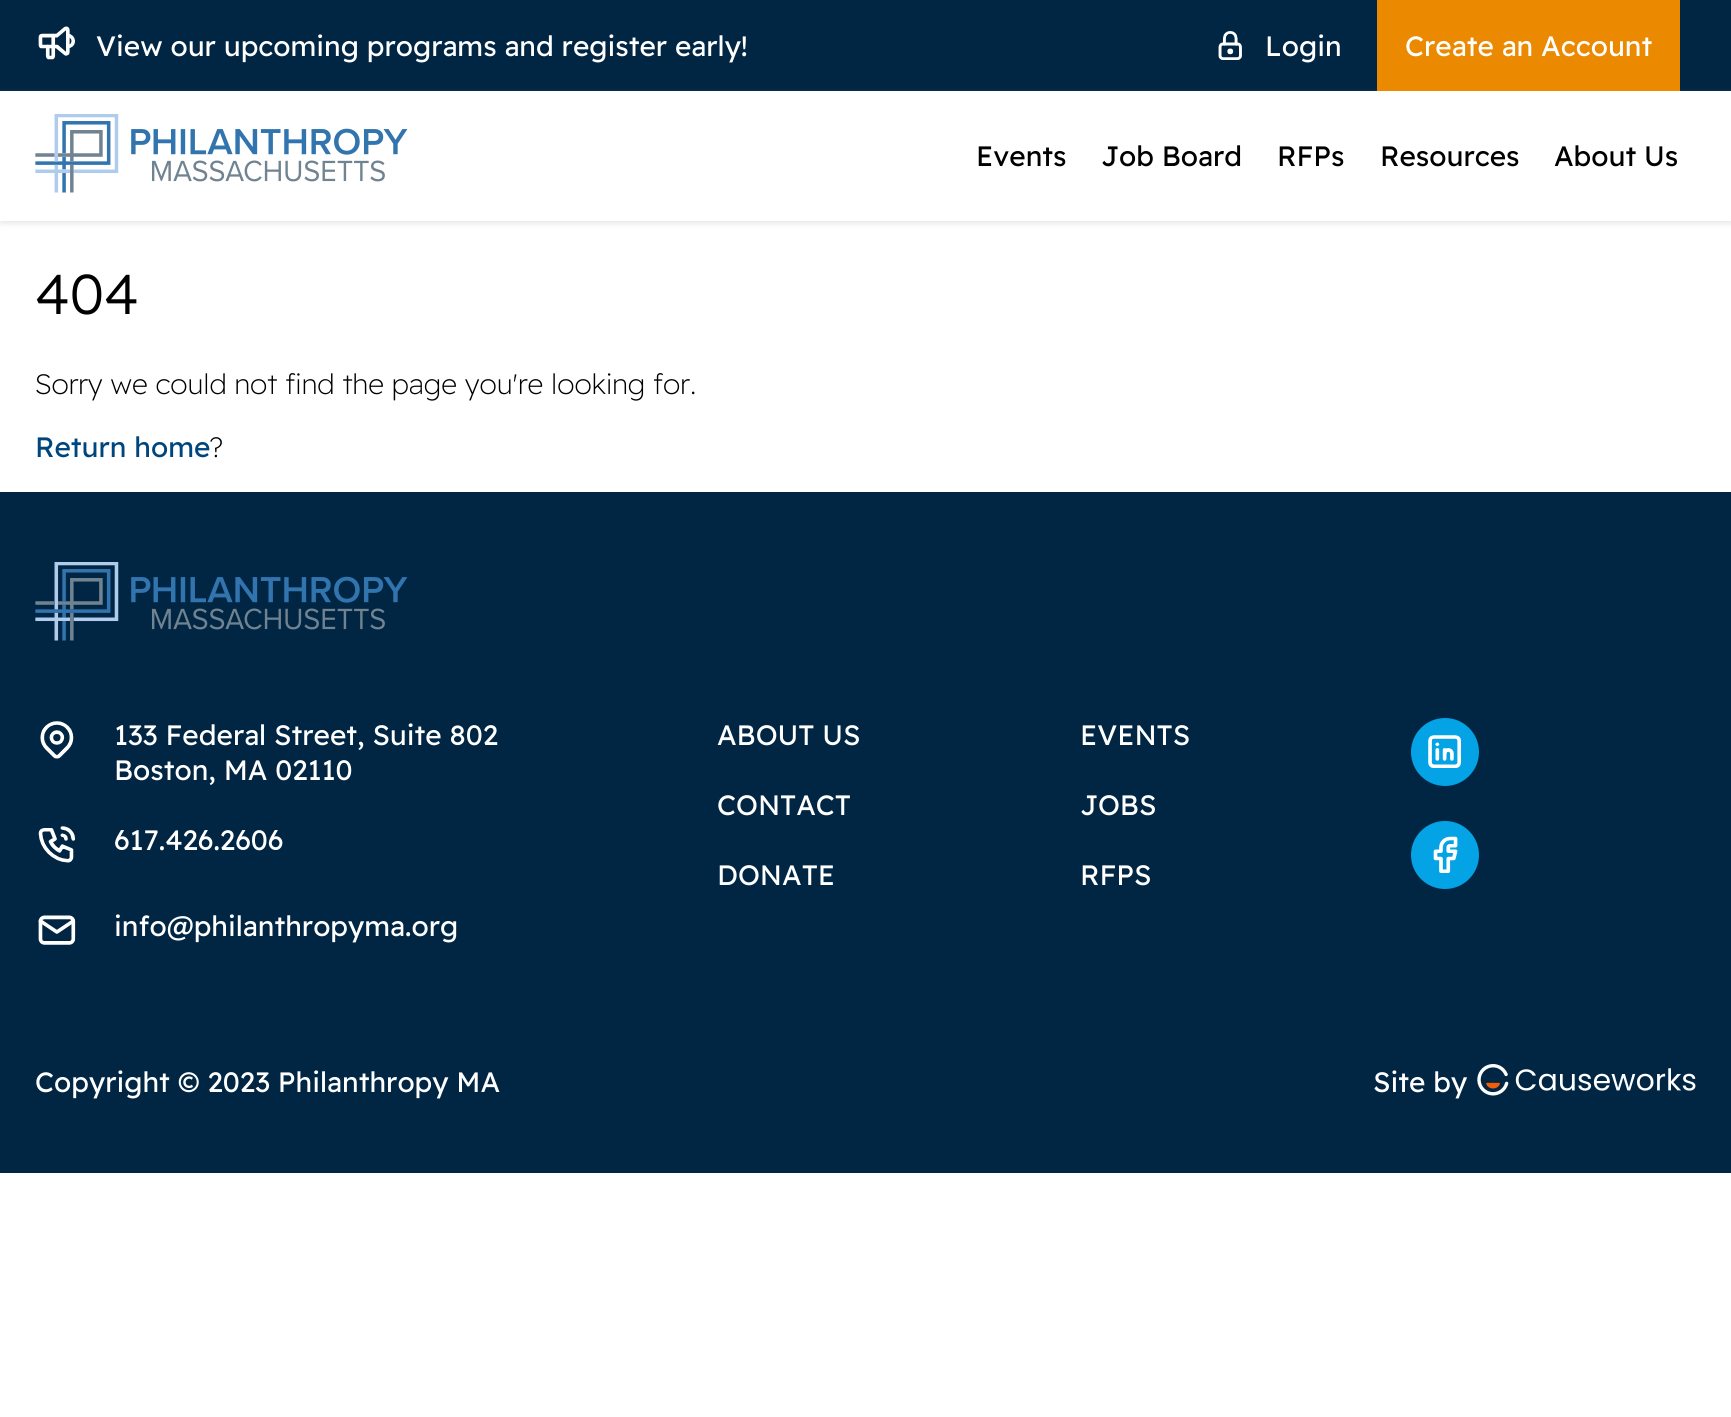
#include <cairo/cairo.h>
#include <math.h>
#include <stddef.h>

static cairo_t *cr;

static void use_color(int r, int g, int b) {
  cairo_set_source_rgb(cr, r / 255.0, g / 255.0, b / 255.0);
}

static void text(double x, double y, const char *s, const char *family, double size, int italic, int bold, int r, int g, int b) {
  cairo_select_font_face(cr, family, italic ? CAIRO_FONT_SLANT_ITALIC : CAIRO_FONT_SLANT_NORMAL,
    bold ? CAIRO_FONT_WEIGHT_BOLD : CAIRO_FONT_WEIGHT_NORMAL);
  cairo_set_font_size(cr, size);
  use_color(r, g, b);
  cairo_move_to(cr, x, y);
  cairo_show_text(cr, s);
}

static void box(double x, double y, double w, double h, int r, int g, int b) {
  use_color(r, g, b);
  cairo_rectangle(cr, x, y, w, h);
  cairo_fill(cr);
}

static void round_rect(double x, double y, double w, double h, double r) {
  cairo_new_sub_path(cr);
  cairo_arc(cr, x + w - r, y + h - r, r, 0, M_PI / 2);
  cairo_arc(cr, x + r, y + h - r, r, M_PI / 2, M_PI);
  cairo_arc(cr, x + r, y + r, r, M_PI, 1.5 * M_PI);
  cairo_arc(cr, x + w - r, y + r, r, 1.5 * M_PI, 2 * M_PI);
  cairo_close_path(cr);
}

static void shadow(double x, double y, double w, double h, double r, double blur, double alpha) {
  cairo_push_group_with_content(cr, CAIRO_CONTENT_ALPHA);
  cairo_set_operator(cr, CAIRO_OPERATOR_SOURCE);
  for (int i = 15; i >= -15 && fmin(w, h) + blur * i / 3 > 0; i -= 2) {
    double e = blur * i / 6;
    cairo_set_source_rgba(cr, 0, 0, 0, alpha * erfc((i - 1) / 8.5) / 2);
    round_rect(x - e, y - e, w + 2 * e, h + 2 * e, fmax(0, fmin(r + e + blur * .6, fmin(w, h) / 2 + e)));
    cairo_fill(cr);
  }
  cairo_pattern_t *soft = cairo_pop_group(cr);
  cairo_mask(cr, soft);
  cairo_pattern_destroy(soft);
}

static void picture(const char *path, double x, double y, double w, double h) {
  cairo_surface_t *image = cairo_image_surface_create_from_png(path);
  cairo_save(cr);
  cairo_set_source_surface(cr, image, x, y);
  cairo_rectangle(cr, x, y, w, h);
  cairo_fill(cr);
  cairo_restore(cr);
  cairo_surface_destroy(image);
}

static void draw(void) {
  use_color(255, 255, 255);
  cairo_paint(cr);
  box(0, 0, 1731, 91, 1, 38, 68);
  picture("img_01.png", 38, 26, 37, 34);
  picture("img_02.png", 1218, 31, 24, 29);
  cairo_save(cr);
  cairo_set_fill_rule(cr, CAIRO_FILL_RULE_EVEN_ODD);
  cairo_new_path(cr);
  cairo_move_to(cr, 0, 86);
  cairo_line_to(cr, 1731, 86);
  cairo_line_to(cr, 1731, 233);
  cairo_line_to(cr, 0, 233);
  cairo_close_path(cr);
  cairo_move_to(cr, 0, 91);
  cairo_line_to(cr, 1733, 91);
  cairo_line_to(cr, 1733, 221);
  cairo_line_to(cr, 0, 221);
  cairo_close_path(cr);
  cairo_clip(cr);
  use_color(234, 234, 234);
  shadow(0, 95, 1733, 129, 0, 2.5, 1);
  cairo_restore(cr);
  box(1377, 0, 303, 91, 235, 137, 0);
  picture("img_03.png", 35, 114, 373, 79);
  box(0, 492, 1731, 681, 1, 38, 68);
  picture("img_04.png", 35, 562, 373, 79);
  picture("img_05.png", 40, 721, 34, 38);
  picture("img_06.png", 38, 826, 38, 37);
  picture("img_07.png", 38, 915, 38, 30);
  use_color(3, 163, 229);
  cairo_arc(cr, 1445, 752, 34, 0, 2 * M_PI);
  cairo_fill(cr);
  picture("img_08.png", 1428, 735, 33, 33);
  cairo_arc(cr, 1445, 855, 34, 0, 2 * M_PI);
  cairo_fill(cr);
  picture("img_09.png", 1433, 836, 25, 37);
  picture("img_10.png", 1477, 1064, 219, 32);
  text(96, 56, "View our upcoming programs and register early!", "Readex Pro", 28, 0, 0, 255, 255, 255);
  text(1265, 56, "Login", "Readex Pro", 28, 0, 0, 255, 255, 255);
  text(1405, 56, "Create an Account", "Readex Pro", 28, 0, 0, 255, 255, 255);
  text(976, 166, "Events", "Readex Pro", 28, 0, 0, 0, 0, 0);
  text(1101, 166, "Job Board", "Readex Pro", 28, 0, 0, 0, 0, 0);
  text(1277, 166, "RFPs", "Readex Pro", 28, 0, 0, 0, 0, 0);
  text(1380, 166, "Resources", "Readex Pro", 28, 0, 0, 0, 0, 0);
  text(1554, 166, "About Us", "Readex Pro", 28, 0, 0, 0, 0, 0);
  text(35, 314, "404", "Readex Pro Light", 56, 0, 0, 0, 0, 0);
  text(35, 394, "Sorry we could not find the page you're looking for.", "Readex Pro ExtraLight", 28, 0, 0, 0, 0, 0);
  text(35, 457, "Return home", "Readex Pro", 28, 0, 0, 0, 70, 126);
  text(210, 457, "?", "Readex Pro ExtraLight", 28, 0, 0, 0, 0, 0);
  text(114, 745, "133 Federal Street, Suite 802", "Readex Pro", 28, 0, 0, 255, 255, 255);
  text(114, 780, "Boston, MA 02110", "Readex Pro", 28, 0, 0, 255, 255, 255);
  text(114, 850, "617.426.2606", "Readex Pro", 28, 0, 0, 255, 255, 255);
  text(114, 936, "info@philanthropyma.org", "Readex Pro", 28, 0, 0, 255, 255, 255);
  text(717, 745, "ABOUT US", "Readex Pro", 28, 0, 0, 255, 255, 255);
  text(717, 815, "CONTACT", "Readex Pro", 28, 0, 0, 255, 255, 255);
  text(717, 885, "DONATE", "Readex Pro", 28, 0, 0, 255, 255, 255);
  text(1080, 745, "EVENTS", "Readex Pro", 28, 0, 0, 255, 255, 255);
  text(1080, 815, "JOBS", "Readex Pro", 28, 0, 0, 255, 255, 255);
  text(1080, 885, "RFPS", "Readex Pro", 28, 0, 0, 255, 255, 255);
  text(35, 1092, "Copyright © 2023 Philanthropy MA", "Readex Pro", 28, 0, 0, 255, 255, 255);
  text(1373, 1092, "Site by", "Readex Pro", 28, 0, 0, 255, 255, 255);
}

int main(void) {
  cairo_surface_t *surface = cairo_image_surface_create(CAIRO_FORMAT_RGB24, 1731, 1417);
  cr = cairo_create(surface);
  cairo_font_options_t *options = cairo_font_options_create();
  cairo_font_options_set_hint_metrics(options, CAIRO_HINT_METRICS_OFF);
  cairo_font_options_set_hint_style(options, CAIRO_HINT_STYLE_NONE);
  cairo_set_font_options(cr, options);
  cairo_set_miter_limit(cr, 4);
  draw();
  cairo_surface_write_to_png(surface, "out.png");
  cairo_font_options_destroy(options);
  cairo_destroy(cr);
  cairo_surface_destroy(surface);
  return 0;
}
